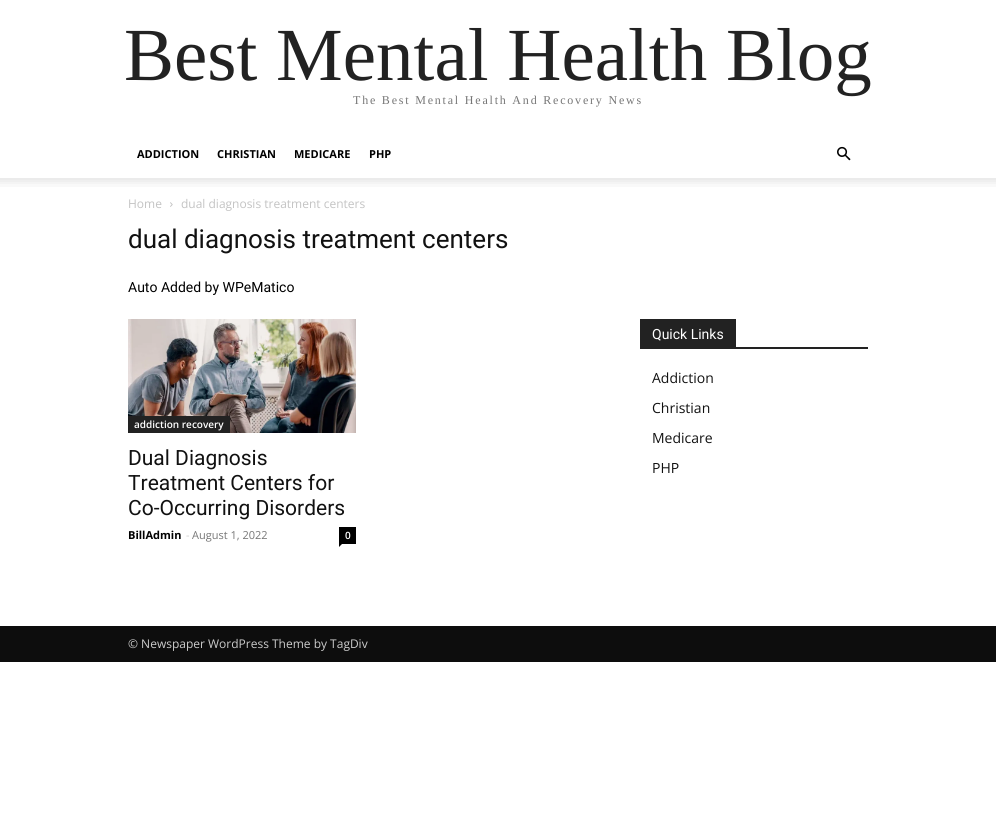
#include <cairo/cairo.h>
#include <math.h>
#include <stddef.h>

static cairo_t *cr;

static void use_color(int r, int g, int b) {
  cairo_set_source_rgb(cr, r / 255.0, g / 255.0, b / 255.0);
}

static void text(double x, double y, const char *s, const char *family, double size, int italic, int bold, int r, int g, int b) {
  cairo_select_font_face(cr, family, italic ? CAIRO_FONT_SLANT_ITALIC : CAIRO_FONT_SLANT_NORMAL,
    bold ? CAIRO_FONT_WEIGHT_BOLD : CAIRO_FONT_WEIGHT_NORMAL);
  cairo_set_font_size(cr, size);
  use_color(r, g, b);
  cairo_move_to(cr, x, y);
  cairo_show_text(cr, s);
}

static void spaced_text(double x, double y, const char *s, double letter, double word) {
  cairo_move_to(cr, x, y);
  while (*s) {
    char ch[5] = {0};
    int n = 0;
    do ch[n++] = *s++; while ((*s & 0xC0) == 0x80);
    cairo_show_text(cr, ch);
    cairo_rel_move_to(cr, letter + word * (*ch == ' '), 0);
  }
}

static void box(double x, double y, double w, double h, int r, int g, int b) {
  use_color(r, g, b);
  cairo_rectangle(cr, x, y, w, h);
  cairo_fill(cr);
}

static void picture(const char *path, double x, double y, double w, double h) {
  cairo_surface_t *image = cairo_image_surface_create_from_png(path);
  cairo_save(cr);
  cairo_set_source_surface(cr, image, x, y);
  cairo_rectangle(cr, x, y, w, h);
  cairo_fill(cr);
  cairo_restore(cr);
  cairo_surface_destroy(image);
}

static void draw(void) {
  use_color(255, 255, 255);
  cairo_paint(cr);
  picture("img_01.png", 837, 146, 14, 15);
  picture("img_02.png", 0, 178, 996, 9);
  picture("img_03.png", 170, 202, 3, 5);
  picture("img_04.png", 128, 319, 228, 114);
  box(128, 416, 102, 17, 34, 34, 34);
  box(339, 527, 17, 17, 0, 0, 0);
  cairo_new_path(cr);
  cairo_move_to(cr, 339, 544);
  cairo_line_to(cr, 342, 544);
  cairo_line_to(cr, 339, 547);
  cairo_close_path(cr);
  cairo_fill(cr);
  box(640, 347, 228, 2, 34, 34, 34);
  box(640, 319, 96, 28, 34, 34, 34);
  box(0, 626, 996, 36, 13, 13, 13);
  text(124, 80, "Best Mental Health Blog", "Liberation Serif", 75, 0, 0, 34, 34, 34);
  cairo_set_font_size(cr, 12);
  use_color(118, 118, 118);
  spaced_text(353, 104, "The Best Mental Health And Recovery News", 1.8, 0);
  text(137, 158, "ADDICTION", "Open Sans", 11, 0, 1, 0, 0, 0);
  text(217, 158, "CHRISTIAN", "Open Sans", 11, 0, 1, 0, 0, 0);
  text(294, 158, "MEDICARE", "Open Sans", 11, 0, 1, 0, 0, 0);
  text(369, 158, "PHP", "Open Sans", 11, 0, 1, 0, 0, 0);
  text(128, 208, "Home", "Open Sans", 12, 0, 0, 195, 195, 195);
  text(181, 208, "dual diagnosis treatment centers", "Open Sans", 12, 0, 0, 195, 195, 195);
  text(128, 248, "dual diagnosis treatment centers", "Roboto", 26, 0, 0, 17, 17, 17);
  text(128, 292, "Auto Added by WPeMatico", "Roboto", 14, 0, 0, 0, 0, 0);
  text(134, 428, "addiction recovery", "Open Sans SemiBold", 10, 0, 0, 255, 255, 255);
  text(128, 465, "Dual Diagnosis", "Roboto", 21, 0, 0, 17, 17, 17);
  text(128, 490, "Treatment Centers for", "Roboto", 21, 0, 0, 17, 17, 17);
  text(128, 515, "Co-Occurring Disorders", "Roboto", 21, 0, 0, 17, 17, 17);
  text(128, 539, "BillAdmin", "Open Sans", 11, 0, 1, 0, 0, 0);
  text(186, 539, "-", "Open Sans", 11, 0, 0, 204, 204, 204);
  text(192, 539, "August 1, 2022", "Open Sans", 11, 0, 0, 118, 118, 118);
  text(345, 539, "0", "Open Sans SemiBold", 10, 0, 0, 255, 255, 255);
  text(652, 339, "Quick Links", "Roboto", 14, 0, 0, 255, 255, 255);
  text(652, 383, "Addiction", "Open Sans", 14, 0, 0, 17, 17, 17);
  text(652, 413, "Christian", "Open Sans", 14, 0, 0, 17, 17, 17);
  text(652, 443, "Medicare", "Open Sans", 14, 0, 0, 17, 17, 17);
  text(652, 473, "PHP", "Open Sans", 14, 0, 0, 17, 17, 17);
  text(128, 648, "© Newspaper WordPress Theme by TagDiv", "Open Sans", 12, 0, 0, 204, 204, 204);
}

int main(void) {
  cairo_surface_t *surface = cairo_image_surface_create(CAIRO_FORMAT_RGB24, 996, 819);
  cr = cairo_create(surface);
  cairo_font_options_t *options = cairo_font_options_create();
  cairo_font_options_set_hint_metrics(options, CAIRO_HINT_METRICS_OFF);
  cairo_font_options_set_hint_style(options, CAIRO_HINT_STYLE_NONE);
  cairo_set_font_options(cr, options);
  cairo_set_miter_limit(cr, 4);
  draw();
  cairo_surface_write_to_png(surface, "out.png");
  cairo_font_options_destroy(options);
  cairo_destroy(cr);
  cairo_surface_destroy(surface);
  return 0;
}
